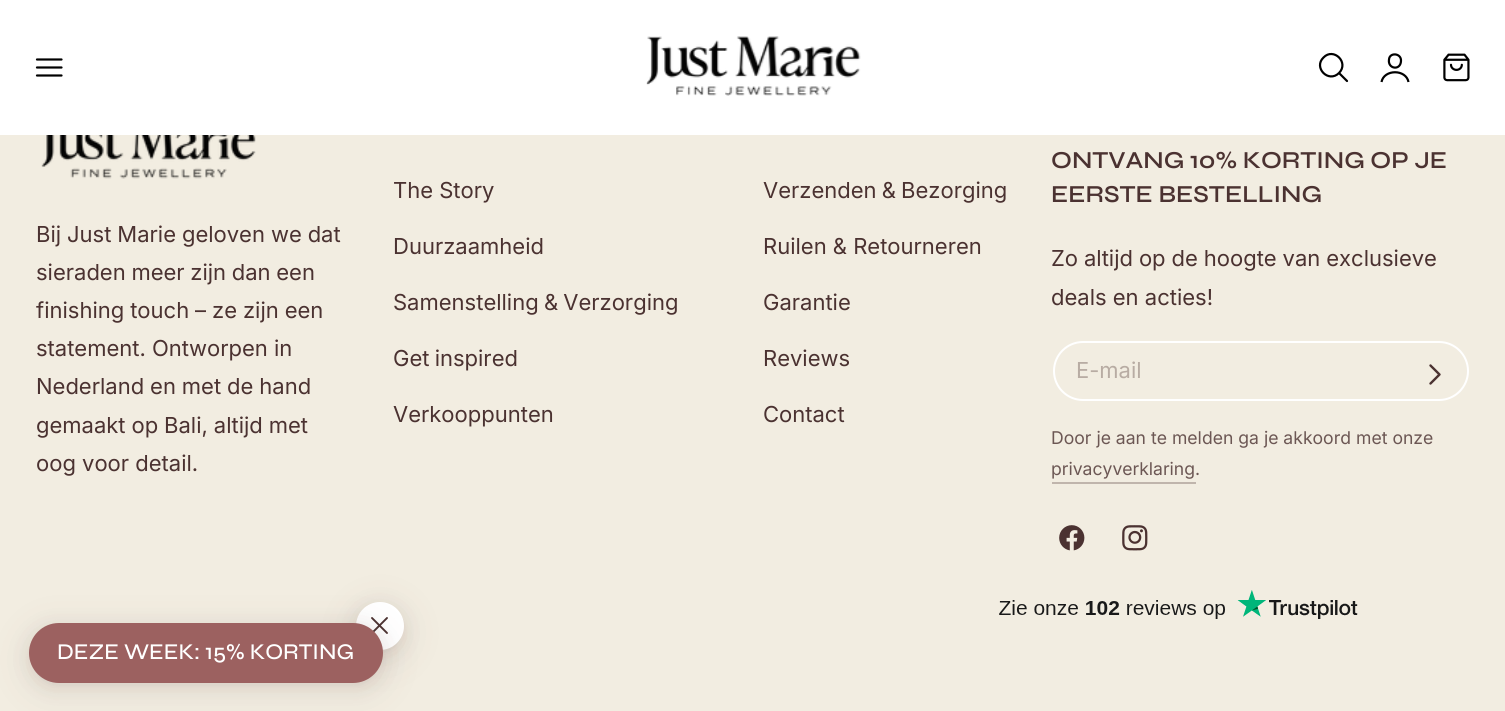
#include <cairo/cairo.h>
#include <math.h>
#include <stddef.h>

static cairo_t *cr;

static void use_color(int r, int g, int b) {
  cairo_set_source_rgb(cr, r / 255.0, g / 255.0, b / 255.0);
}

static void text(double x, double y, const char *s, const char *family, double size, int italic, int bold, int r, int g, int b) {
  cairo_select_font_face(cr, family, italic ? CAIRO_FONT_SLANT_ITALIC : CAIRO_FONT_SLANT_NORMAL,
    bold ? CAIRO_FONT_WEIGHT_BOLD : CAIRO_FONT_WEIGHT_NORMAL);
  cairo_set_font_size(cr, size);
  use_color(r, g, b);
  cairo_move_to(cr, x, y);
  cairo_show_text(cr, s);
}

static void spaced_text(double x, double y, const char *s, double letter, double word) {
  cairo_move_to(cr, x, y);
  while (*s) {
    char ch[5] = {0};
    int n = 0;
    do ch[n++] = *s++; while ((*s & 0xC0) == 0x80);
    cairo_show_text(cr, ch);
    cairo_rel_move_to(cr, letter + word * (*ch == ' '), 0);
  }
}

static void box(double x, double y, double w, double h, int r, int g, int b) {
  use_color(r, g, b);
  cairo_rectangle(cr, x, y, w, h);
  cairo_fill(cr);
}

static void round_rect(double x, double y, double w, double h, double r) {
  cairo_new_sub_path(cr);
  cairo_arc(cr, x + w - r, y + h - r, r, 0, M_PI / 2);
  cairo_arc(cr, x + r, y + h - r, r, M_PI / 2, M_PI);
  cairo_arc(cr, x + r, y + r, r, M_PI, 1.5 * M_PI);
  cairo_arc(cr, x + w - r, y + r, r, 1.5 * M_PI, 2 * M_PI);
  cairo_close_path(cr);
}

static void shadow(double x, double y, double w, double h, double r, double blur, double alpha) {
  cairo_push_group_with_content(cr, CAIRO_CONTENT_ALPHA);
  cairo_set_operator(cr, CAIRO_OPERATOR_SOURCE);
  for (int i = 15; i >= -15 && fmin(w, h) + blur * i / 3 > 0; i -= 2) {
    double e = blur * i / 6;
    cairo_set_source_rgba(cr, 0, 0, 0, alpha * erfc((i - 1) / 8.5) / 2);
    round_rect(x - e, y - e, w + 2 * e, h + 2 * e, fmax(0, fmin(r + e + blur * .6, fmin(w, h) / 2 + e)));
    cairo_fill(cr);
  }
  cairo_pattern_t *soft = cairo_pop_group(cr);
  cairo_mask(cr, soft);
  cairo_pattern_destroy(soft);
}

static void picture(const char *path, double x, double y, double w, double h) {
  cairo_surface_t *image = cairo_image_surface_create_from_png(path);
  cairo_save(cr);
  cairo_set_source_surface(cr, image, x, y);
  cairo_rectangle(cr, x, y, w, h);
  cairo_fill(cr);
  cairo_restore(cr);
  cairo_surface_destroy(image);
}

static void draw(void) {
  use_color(242, 237, 225);
  cairo_paint(cr);
  box(0, 0, 1505, 135, 255, 255, 255);
  cairo_new_path(cr);
  cairo_move_to(cr, 37, 59.5);
  cairo_line_to(cr, 61.5, 59.5);
  cairo_move_to(cr, 37, 67.5);
  cairo_line_to(cr, 61.5, 67.5);
  cairo_move_to(cr, 37, 75.5);
  cairo_line_to(cr, 61.5, 75.5);
  use_color(0, 0, 0);
  cairo_set_line_width(cr, 2.2);
  cairo_set_line_cap(cr, CAIRO_LINE_CAP_ROUND);
  cairo_set_line_join(cr, CAIRO_LINE_JOIN_ROUND);
  cairo_stroke(cr);
  picture("img_01.png", 646, 36, 215, 60);
  cairo_new_path(cr);
  cairo_move_to(cr, 1347, 81);
  cairo_line_to(cr, 1339, 73);
  cairo_move_to(cr, 1339, 73);
  cairo_curve_to(cr, 1349.5, 62.5, 1333.5, 47, 1323.5, 57.5);
  cairo_curve_to(cr, 1313, 67.5, 1328.5, 83.5, 1339, 73);
  cairo_close_path(cr);
  cairo_stroke(cr);
  cairo_new_path(cr);
  cairo_move_to(cr, 1401, 61);
  cairo_curve_to(cr, 1400.5, 71, 1387.5, 69, 1389, 59.5);
  cairo_curve_to(cr, 1389.5, 52, 1401.5, 53, 1401, 61);
  cairo_close_path(cr);
  cairo_stroke(cr);
  cairo_new_path(cr);
  cairo_move_to(cr, 1381.5, 82);
  cairo_curve_to(cr, 1384, 69, 1406, 69, 1408.5, 82);
  cairo_set_line_cap(cr, CAIRO_LINE_CAP_BUTT);
  cairo_set_line_join(cr, CAIRO_LINE_JOIN_MITER);
  cairo_stroke(cr);
  picture("img_02.png", 1443, 53, 27, 29);
  picture("img_03.png", 41, 135, 215, 44);
  round_rect(1054, 342, 414, 58, 29);
  use_color(255, 255, 255);
  cairo_set_line_width(cr, 2);
  cairo_stroke(cr);
  cairo_new_path(cr);
  cairo_move_to(cr, 1430.5, 365.5);
  cairo_line_to(cr, 1439.5, 374.5);
  cairo_line_to(cr, 1430.5, 383.5);
  use_color(75, 50, 49);
  cairo_set_line_width(cr, 2.4);
  cairo_set_line_cap(cr, CAIRO_LINE_CAP_ROUND);
  cairo_set_line_join(cr, CAIRO_LINE_JOIN_ROUND);
  cairo_stroke(cr);
  box(1052, 482, 144, 2, 192, 181, 172);
  picture("img_04.png", 1059, 525, 26, 26);
  picture("img_05.png", 1122, 525, 26, 26);
  picture("img_06.png", 999, 590, 359, 29);
  cairo_new_path(cr);
  cairo_move_to(cr, 1433.5, 364.5);
  cairo_line_to(cr, 1451, 347.5);
  cairo_move_to(cr, 1433.5, 347.5);
  cairo_line_to(cr, 1451, 364.5);
  use_color(242, 237, 225);
  cairo_set_line_width(cr, 2.2);
  cairo_stroke(cr);
  use_color(75, 50, 49);
  shadow(356, 609, 48, 48, 24, 19, 0.1);
  shadow(356, 606, 48, 48, 24, 9, 0.1);
  use_color(255, 255, 255);
  cairo_arc(cr, 380, 626, 24, 0, 2 * M_PI);
  cairo_fill(cr);
  cairo_new_path(cr);
  cairo_move_to(cr, 372, 633);
  cairo_line_to(cr, 387, 618);
  cairo_move_to(cr, 372, 618);
  cairo_line_to(cr, 387, 633);
  use_color(75, 50, 49);
  cairo_set_line_width(cr, 1.9);
  cairo_stroke(cr);
  use_color(75, 50, 49);
  shadow(29, 630, 354, 60, 30, 19, 0.1);
  shadow(29, 627, 354, 60, 30, 9, 0.1);
  use_color(156, 97, 96);
  round_rect(29, 623, 354, 60, 30);
  cairo_fill(cr);
  cairo_select_font_face(cr, "Inter", CAIRO_FONT_SLANT_NORMAL, CAIRO_FONT_WEIGHT_NORMAL);
  cairo_set_font_size(cr, 22);
  use_color(75, 50, 49);
  spaced_text(36, 242, "Bij Just Marie geloven we dat", 0, -0.25);
  spaced_text(36, 280, "sieraden meer zijn dan een", 0, -0.5);
  spaced_text(36, 318, "finishing touch – ze zijn een", 0, -0.25);
  text(36, 356, "statement. Ontworpen in", "Inter", 22, 0, 0, 75, 50, 49);
  spaced_text(36, 394, "Nederland en met de hand", 0, -0.25);
  spaced_text(36, 433, "gemaakt op Bali, altijd met", 0, -0.25);
  text(36, 471, "oog voor detail.", "Inter", 22, 0, 0, 75, 50, 49);
  text(393, 198, "The Story", "Inter", 22, 0, 0, 75, 50, 49);
  text(393, 254, "Duurzaamheid", "Inter", 22, 0, 0, 75, 50, 49);
  spaced_text(393, 310, "Samenstelling & Verzorging", 0, -1);
  spaced_text(393, 366, "Get inspired", 0, -1);
  text(393, 422, "Verkooppunten", "Inter", 22, 0, 0, 75, 50, 49);
  spaced_text(763, 198, "Verzenden & Bezorging", 0, -1);
  text(763, 254, "Ruilen & Retourneren", "Inter", 22, 0, 0, 75, 50, 49);
  text(763, 310, "Garantie", "Inter", 22, 0, 0, 75, 50, 49);
  text(763, 366, "Reviews", "Inter", 22, 0, 0, 75, 50, 49);
  text(763, 422, "Contact", "Inter", 22, 0, 0, 75, 50, 49);
  text(1051, 168, "ONTVANG 10% KORTING OP JE", "Syne SemiBold", 24.4, 0, 0, 75, 50, 49);
  text(1051, 202, "EERSTE BESTELLING", "Syne SemiBold", 24.4, 0, 0, 75, 50, 49);
  cairo_select_font_face(cr, "Inter", CAIRO_FONT_SLANT_NORMAL, CAIRO_FONT_WEIGHT_NORMAL);
  cairo_set_font_size(cr, 22);
  spaced_text(1051, 266, "Zo altijd op de hoogte van exclusieve", 0, -0.25);
  text(1051, 305, "deals en acties!", "Inter", 22, 0, 0, 75, 50, 49);
  text(1076, 378, "E-mail", "Inter", 22, 0, 0, 184, 172, 163);
  text(1051, 444, "Door je aan te melden ga je akkoord met onze", "Inter", 17.6, 0, 0, 108, 87, 84);
  text(1051, 475, "privacyverklaring.", "Inter", 17.6, 0, 0, 108, 87, 84);
  text(57, 659, "DEZE WEEK: 15% KORTING", "Syne Medium", 22.5, 0, 0, 255, 255, 255);
}

int main(void) {
  cairo_surface_t *surface = cairo_image_surface_create(CAIRO_FORMAT_RGB24, 1505, 711);
  cr = cairo_create(surface);
  cairo_font_options_t *options = cairo_font_options_create();
  cairo_font_options_set_hint_metrics(options, CAIRO_HINT_METRICS_OFF);
  cairo_font_options_set_hint_style(options, CAIRO_HINT_STYLE_NONE);
  cairo_set_font_options(cr, options);
  cairo_set_miter_limit(cr, 4);
  draw();
  cairo_surface_write_to_png(surface, "out.png");
  cairo_font_options_destroy(options);
  cairo_destroy(cr);
  cairo_surface_destroy(surface);
  return 0;
}
